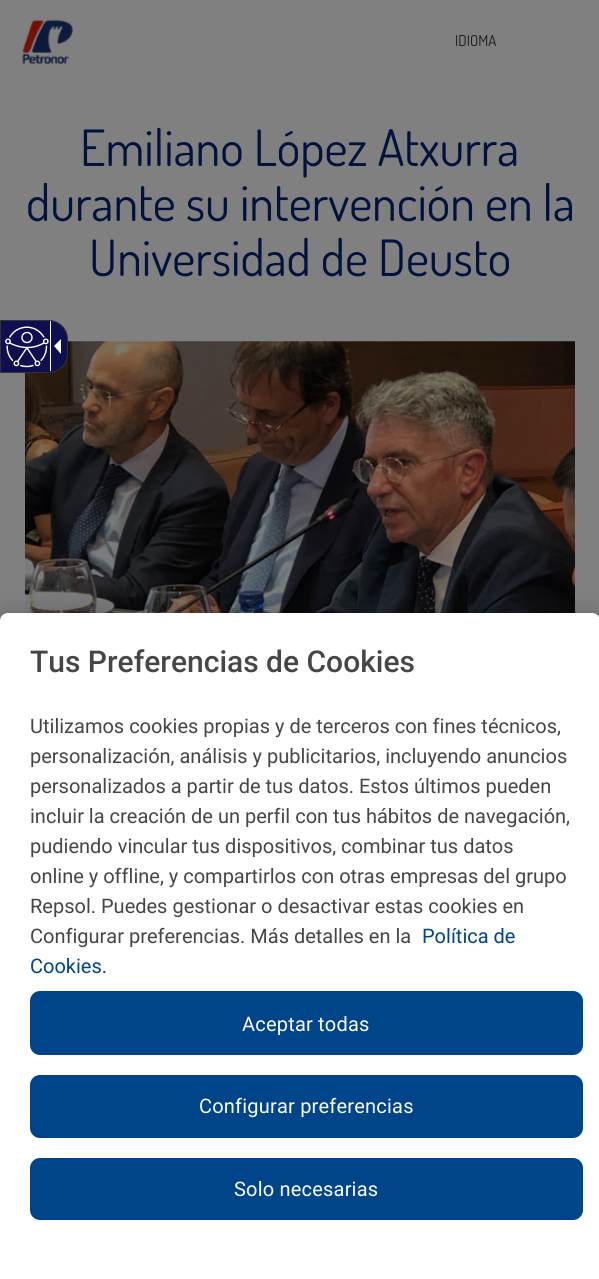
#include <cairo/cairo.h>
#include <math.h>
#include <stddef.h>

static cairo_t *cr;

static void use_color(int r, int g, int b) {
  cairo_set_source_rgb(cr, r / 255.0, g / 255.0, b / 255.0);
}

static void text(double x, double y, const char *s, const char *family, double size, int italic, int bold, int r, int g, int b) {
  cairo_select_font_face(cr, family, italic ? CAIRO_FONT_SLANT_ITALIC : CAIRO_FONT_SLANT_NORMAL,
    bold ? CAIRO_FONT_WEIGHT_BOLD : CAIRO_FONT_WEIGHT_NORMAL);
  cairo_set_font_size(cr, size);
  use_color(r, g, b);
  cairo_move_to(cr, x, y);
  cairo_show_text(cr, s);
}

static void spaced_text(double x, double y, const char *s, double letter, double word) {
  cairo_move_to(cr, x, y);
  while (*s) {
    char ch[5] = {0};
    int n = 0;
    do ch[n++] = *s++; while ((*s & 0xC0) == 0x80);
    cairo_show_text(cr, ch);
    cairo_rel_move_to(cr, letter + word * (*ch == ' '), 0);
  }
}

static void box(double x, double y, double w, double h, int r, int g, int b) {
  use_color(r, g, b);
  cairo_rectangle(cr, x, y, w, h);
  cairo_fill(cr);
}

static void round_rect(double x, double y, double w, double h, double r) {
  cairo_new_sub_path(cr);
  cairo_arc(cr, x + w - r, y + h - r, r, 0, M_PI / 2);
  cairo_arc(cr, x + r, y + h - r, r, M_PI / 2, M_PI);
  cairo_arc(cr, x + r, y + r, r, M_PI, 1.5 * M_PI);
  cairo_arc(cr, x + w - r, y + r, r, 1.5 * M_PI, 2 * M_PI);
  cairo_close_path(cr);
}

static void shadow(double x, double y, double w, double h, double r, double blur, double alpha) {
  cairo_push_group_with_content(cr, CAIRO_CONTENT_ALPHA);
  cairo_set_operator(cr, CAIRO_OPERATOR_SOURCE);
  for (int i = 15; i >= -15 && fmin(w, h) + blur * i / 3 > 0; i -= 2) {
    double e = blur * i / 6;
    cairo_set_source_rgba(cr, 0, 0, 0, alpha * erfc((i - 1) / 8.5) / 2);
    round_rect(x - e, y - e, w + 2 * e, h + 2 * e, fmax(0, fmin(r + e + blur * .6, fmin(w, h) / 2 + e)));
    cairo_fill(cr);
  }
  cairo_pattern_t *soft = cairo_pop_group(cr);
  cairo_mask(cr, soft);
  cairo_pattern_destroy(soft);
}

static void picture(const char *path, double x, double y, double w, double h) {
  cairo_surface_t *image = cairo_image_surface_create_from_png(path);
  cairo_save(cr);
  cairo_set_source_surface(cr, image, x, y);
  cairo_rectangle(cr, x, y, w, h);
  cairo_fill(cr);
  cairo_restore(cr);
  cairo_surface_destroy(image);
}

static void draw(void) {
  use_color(128, 128, 128);
  cairo_paint(cr);
  picture("img_01.png", 22, 19, 51, 46);
  picture("img_02.png", 25, 341, 550, 272);
  use_color(14, 15, 81);
  cairo_new_path(cr);
  cairo_move_to(cr, 0.5, 320.5);
  cairo_line_to(cr, 49, 320.5);
  cairo_curve_to(cr, 59, 320.5, 67.5, 329, 67.5, 339);
  cairo_line_to(cr, 67.5, 354);
  cairo_curve_to(cr, 67.5, 364, 59, 372.5, 49, 372.5);
  cairo_line_to(cr, 0.5, 372.5);
  cairo_close_path(cr);
  cairo_fill_preserve(cr);
  use_color(51, 51, 51);
  cairo_set_line_width(cr, 1);
  cairo_stroke(cr);
  box(50, 321, 1, 50, 255, 255, 255);
  picture("img_03.png", 5, 326, 44, 42);
  cairo_new_path(cr);
  cairo_move_to(cr, 61, 339);
  cairo_line_to(cr, 61, 354);
  cairo_line_to(cr, 54, 346);
  cairo_close_path(cr);
  cairo_fill(cr);
  use_color(0, 0, 0);
  shadow(0, 613, 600, 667, 8, 11, 0.2);
  use_color(255, 255, 255);
  cairo_new_path(cr);
  cairo_move_to(cr, 8, 613);
  cairo_line_to(cr, 592, 613);
  cairo_curve_to(cr, 596.5, 613, 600, 616.5, 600, 621);
  cairo_line_to(cr, 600, 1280);
  cairo_line_to(cr, 0, 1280);
  cairo_line_to(cr, 0, 621);
  cairo_curve_to(cr, 0, 616.5, 3.5, 613, 8, 613);
  cairo_close_path(cr);
  cairo_fill(cr);
  use_color(0, 68, 137);
  round_rect(30, 991, 553, 64, 10);
  cairo_fill(cr);
  round_rect(30, 1075, 553, 63, 10);
  cairo_fill(cr);
  round_rect(30, 1158, 553, 62, 10);
  cairo_fill(cr);
  text(455, 46, "IDIOMA", "Dosis", 15, 0, 0, 26, 26, 26);
  text(80, 166, "Emiliano López Atxurra", "Dosis", 50, 0, 0, 1, 18, 63);
  text(26, 221, "durante su intervención en la", "Dosis", 50, 0, 0, 1, 18, 63);
  text(89, 276, "Universidad de Deusto", "Dosis", 50, 0, 0, 1, 18, 63);
  text(30, 672, "Tus Preferencias de Cookies", "Roboto Medium", 30, 0, 0, 70, 70, 70);
  text(30, 733, "Utilizamos cookies propias y de terceros con fines técnicos,", "Roboto", 20, 0, 0, 70, 70, 70);
  text(30, 763, "personalización, análisis y publicitarios, incluyendo anuncios", "Roboto", 20, 0, 0, 70, 70, 70);
  text(30, 793, "personalizados a partir de tus datos. Estos últimos pueden", "Roboto", 20, 0, 0, 70, 70, 70);
  text(30, 823, "incluir la creación de un perfil con tus hábitos de navegación,", "Roboto", 20, 0, 0, 70, 70, 70);
  text(30, 853, "pudiendo vincular tus dispositivos, combinar tus datos", "Roboto", 20, 0, 0, 70, 70, 70);
  text(30, 883, "online y offline, y compartirlos con otras empresas del grupo", "Roboto", 20, 0, 0, 70, 70, 70);
  text(30, 913, "Repsol. Puedes gestionar o desactivar estas cookies en", "Roboto", 20, 0, 0, 70, 70, 70);
  text(30, 943, "Configurar preferencias. Más detalles en la", "Roboto", 20, 0, 0, 70, 70, 70);
  text(422, 943, "Política de", "Roboto", 20, 0, 0, 0, 68, 137);
  text(30, 973, "Cookies.", "Roboto", 20, 0, 0, 0, 68, 137);
  use_color(255, 255, 255);
  spaced_text(242, 1031, "Aceptar todas", 0.2, 0);
  spaced_text(199, 1113, "Configurar preferencias", 0.2, 0);
  spaced_text(234, 1196, "Solo necesarias", 0.2, 0);
}

int main(void) {
  cairo_surface_t *surface = cairo_image_surface_create(CAIRO_FORMAT_RGB24, 599, 1279);
  cr = cairo_create(surface);
  cairo_font_options_t *options = cairo_font_options_create();
  cairo_font_options_set_hint_metrics(options, CAIRO_HINT_METRICS_OFF);
  cairo_font_options_set_hint_style(options, CAIRO_HINT_STYLE_NONE);
  cairo_set_font_options(cr, options);
  cairo_set_miter_limit(cr, 4);
  draw();
  cairo_surface_write_to_png(surface, "out.png");
  cairo_font_options_destroy(options);
  cairo_destroy(cr);
  cairo_surface_destroy(surface);
  return 0;
}
